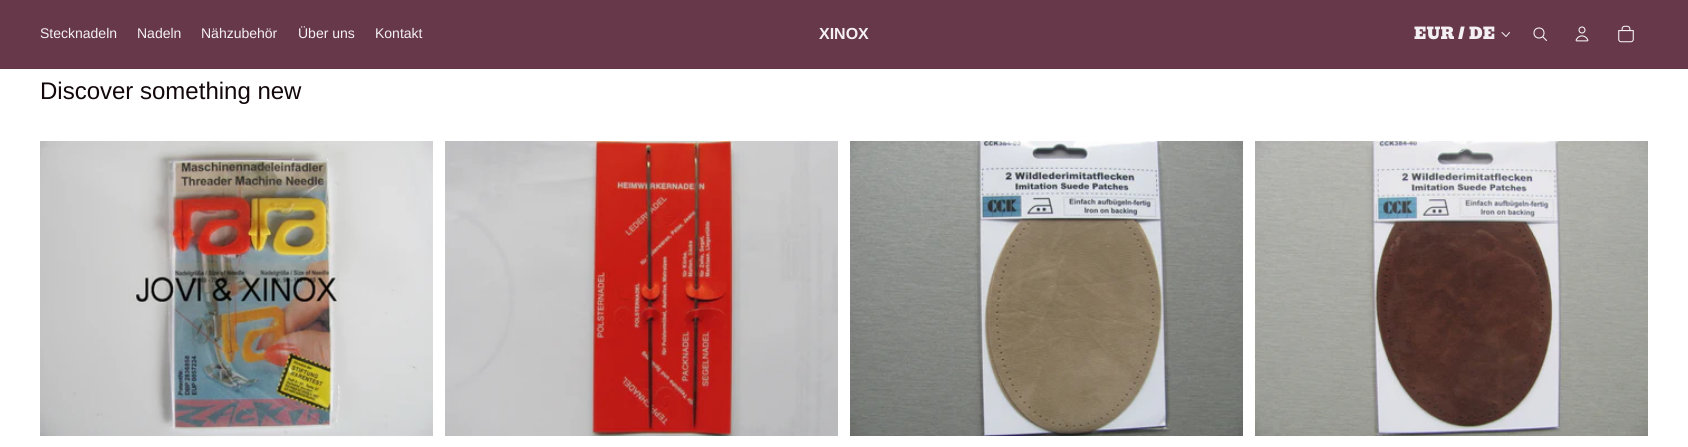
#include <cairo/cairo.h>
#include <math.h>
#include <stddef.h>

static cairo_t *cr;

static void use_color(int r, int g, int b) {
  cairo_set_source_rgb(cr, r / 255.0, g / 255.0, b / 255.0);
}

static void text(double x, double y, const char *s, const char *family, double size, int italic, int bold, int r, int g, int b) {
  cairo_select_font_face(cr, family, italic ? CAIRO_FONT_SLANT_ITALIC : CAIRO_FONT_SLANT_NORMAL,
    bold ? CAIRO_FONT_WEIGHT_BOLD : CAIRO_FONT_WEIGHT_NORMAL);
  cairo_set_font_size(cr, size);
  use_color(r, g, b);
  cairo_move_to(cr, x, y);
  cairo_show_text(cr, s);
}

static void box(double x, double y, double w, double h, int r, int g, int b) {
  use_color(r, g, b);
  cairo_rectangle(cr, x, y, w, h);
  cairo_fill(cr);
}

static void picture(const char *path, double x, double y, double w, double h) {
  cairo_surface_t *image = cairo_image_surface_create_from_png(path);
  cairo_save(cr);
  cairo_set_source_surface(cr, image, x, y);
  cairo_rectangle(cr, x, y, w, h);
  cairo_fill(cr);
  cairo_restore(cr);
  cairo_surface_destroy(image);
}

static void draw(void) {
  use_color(255, 255, 255);
  cairo_paint(cr);
  box(0, 0, 1688, 69, 102, 56, 74);
  cairo_new_path(cr);
  cairo_move_to(cr, 1509.5, 32.5);
  cairo_line_to(cr, 1506, 36.5);
  cairo_line_to(cr, 1502, 32.5);
  use_color(244, 240, 242);
  cairo_set_line_width(cr, 1);
  cairo_set_line_cap(cr, CAIRO_LINE_CAP_ROUND);
  cairo_set_line_join(cr, CAIRO_LINE_JOIN_ROUND);
  cairo_stroke(cr);
  cairo_arc(cr, 1539, 33, 5, 0, 2 * M_PI);
  cairo_set_line_width(cr, 1.1);
  cairo_set_line_cap(cr, CAIRO_LINE_CAP_BUTT);
  cairo_set_line_join(cr, CAIRO_LINE_JOIN_MITER);
  cairo_stroke(cr);
  cairo_new_path(cr);
  cairo_move_to(cr, 1543, 37);
  cairo_line_to(cr, 1546.5, 40.5);
  cairo_set_line_cap(cr, CAIRO_LINE_CAP_ROUND);
  cairo_set_line_join(cr, CAIRO_LINE_JOIN_ROUND);
  cairo_stroke(cr);
  picture("img_01.png", 1575, 26, 14, 16);
  picture("img_02.png", 1618, 25, 16, 18);
  picture("img_03.png", 40, 141, 393, 295);
  picture("img_04.png", 445, 141, 393, 295);
  picture("img_05.png", 850, 141, 393, 295);
  picture("img_06.png", 1255, 141, 393, 295);
  text(40, 38, "Stecknadeln", "Arimo", 14, 0, 0, 244, 240, 242);
  text(137, 38, "Nadeln", "Arimo", 14, 0, 0, 244, 240, 242);
  text(201, 38, "Nähzubehör", "Arimo", 14, 0, 0, 244, 240, 242);
  text(298, 38, "Über uns", "Arimo", 14, 0, 0, 244, 240, 242);
  text(375, 38, "Kontakt", "Arimo", 14, 0, 0, 244, 240, 242);
  text(819, 39, "XINOX", "Arimo", 16, 0, 1, 244, 240, 242);
  text(1414, 39, "EUR", "Bevan", 16, 0, 0, 244, 240, 242);
  text(1458, 39, "/", "Bevan", 16, 0, 0, 244, 240, 242);
  text(1469, 39, "DE", "Bevan", 16, 0, 0, 244, 240, 242);
  text(40, 99, "Discover something new", "Arimo", 24, 0, 0, 18, 8, 12);
}

int main(void) {
  cairo_surface_t *surface = cairo_image_surface_create(CAIRO_FORMAT_RGB24, 1688, 447);
  cr = cairo_create(surface);
  cairo_font_options_t *options = cairo_font_options_create();
  cairo_font_options_set_hint_metrics(options, CAIRO_HINT_METRICS_OFF);
  cairo_font_options_set_hint_style(options, CAIRO_HINT_STYLE_NONE);
  cairo_set_font_options(cr, options);
  cairo_set_miter_limit(cr, 4);
  draw();
  cairo_surface_write_to_png(surface, "out.png");
  cairo_font_options_destroy(options);
  cairo_destroy(cr);
  cairo_surface_destroy(surface);
  return 0;
}
